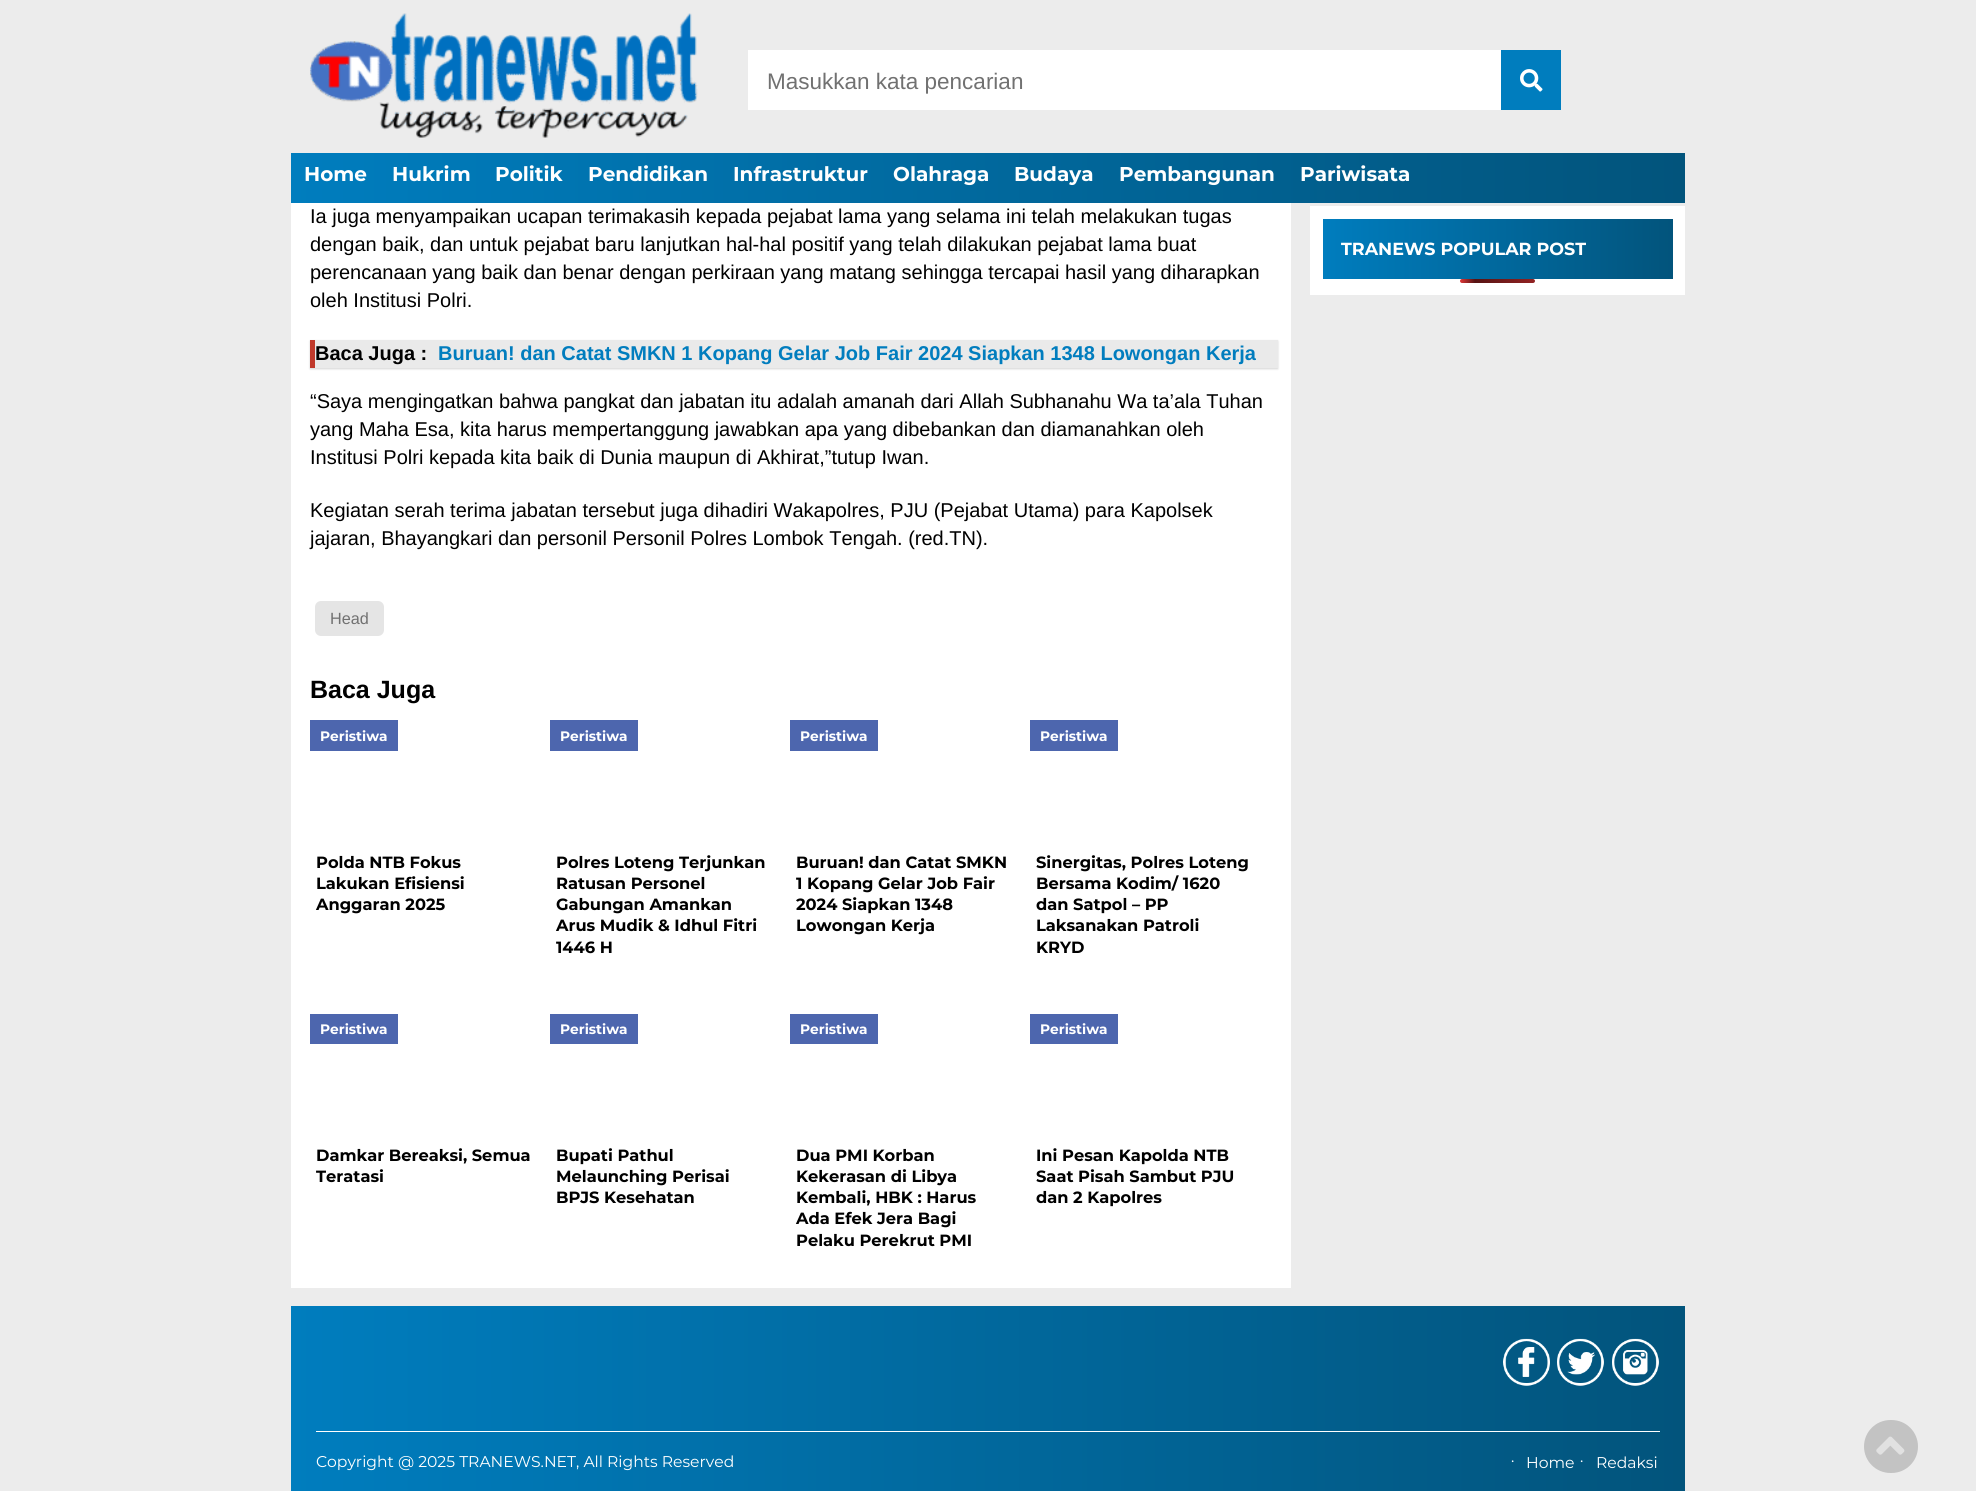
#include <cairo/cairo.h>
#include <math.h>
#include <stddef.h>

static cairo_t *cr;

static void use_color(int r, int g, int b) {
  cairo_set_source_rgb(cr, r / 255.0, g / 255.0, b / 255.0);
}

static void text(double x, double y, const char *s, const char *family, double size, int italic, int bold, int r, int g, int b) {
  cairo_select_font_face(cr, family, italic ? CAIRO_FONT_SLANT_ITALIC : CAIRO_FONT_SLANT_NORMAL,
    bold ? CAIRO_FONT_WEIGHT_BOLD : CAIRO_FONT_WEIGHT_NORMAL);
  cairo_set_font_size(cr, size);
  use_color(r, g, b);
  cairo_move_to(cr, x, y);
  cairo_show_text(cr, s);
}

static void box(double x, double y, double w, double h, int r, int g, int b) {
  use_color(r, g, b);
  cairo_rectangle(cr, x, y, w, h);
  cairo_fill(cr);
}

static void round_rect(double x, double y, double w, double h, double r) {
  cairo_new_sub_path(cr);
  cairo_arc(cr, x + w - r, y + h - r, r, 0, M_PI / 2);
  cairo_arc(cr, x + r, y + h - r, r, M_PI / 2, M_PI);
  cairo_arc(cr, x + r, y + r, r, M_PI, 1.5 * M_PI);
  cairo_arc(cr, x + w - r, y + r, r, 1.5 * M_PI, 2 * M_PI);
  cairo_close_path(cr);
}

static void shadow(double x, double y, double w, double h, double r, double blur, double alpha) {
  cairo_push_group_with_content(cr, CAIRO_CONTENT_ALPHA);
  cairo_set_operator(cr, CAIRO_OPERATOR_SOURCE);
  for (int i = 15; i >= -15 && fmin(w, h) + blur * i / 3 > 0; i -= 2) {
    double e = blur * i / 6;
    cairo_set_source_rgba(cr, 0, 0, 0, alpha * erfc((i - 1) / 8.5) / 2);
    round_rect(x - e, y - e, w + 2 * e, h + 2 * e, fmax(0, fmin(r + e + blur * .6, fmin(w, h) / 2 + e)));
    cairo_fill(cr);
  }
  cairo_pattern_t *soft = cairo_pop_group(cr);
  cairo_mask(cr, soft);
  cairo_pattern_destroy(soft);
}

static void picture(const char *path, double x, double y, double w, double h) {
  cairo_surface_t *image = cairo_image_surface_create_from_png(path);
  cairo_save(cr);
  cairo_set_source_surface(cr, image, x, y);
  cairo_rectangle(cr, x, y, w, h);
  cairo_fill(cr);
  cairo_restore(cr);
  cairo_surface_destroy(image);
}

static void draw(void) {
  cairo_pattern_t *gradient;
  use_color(236, 236, 236);
  cairo_paint(cr);
  picture("img_01.png", 310, 13, 388, 125);
  box(748, 50, 753, 60, 255, 255, 255);
  box(1501, 50, 60, 60, 0, 125, 190);
  picture("img_02.png", 1520, 69, 23, 23);
  gradient = cairo_pattern_create_linear(291, 178, 1685, 177);
  cairo_pattern_add_color_stop_rgba(gradient, 0, 0, 0.49, 0.745, 1);
  cairo_pattern_add_color_stop_rgba(gradient, 1, 0.008, 0.329, 0.486, 1);
  cairo_set_source(cr, gradient);
  cairo_pattern_destroy(gradient);
  cairo_rectangle(cr, 291, 153, 1394, 50);
  cairo_fill(cr);
  box(291, 203, 1000, 1085, 255, 255, 255);
  use_color(0, 0, 0);
  shadow(310, 341, 968, 28, 0, 1, 0.17);
  box(315, 340, 963, 28, 234, 234, 234);
  box(310, 340, 5, 28, 192, 57, 43);
  use_color(229, 229, 229);
  round_rect(315, 601, 69, 35, 6);
  cairo_fill(cr);
  box(310, 720, 88, 31, 77, 102, 174);
  box(550, 720, 88, 31, 77, 102, 174);
  box(790, 720, 88, 31, 77, 102, 174);
  box(1030, 720, 88, 31, 77, 102, 174);
  box(310, 1014, 88, 30, 77, 102, 174);
  box(550, 1014, 88, 30, 77, 102, 174);
  box(790, 1014, 88, 30, 77, 102, 174);
  box(1030, 1014, 88, 30, 77, 102, 174);
  box(1310, 206, 375, 89, 255, 255, 255);
  gradient = cairo_pattern_create_linear(1323, 249, 1673, 249);
  cairo_pattern_add_color_stop_rgba(gradient, 0, 0, 0.49, 0.745, 1);
  cairo_pattern_add_color_stop_rgba(gradient, 1, 0.008, 0.329, 0.486, 1);
  cairo_set_source(cr, gradient);
  cairo_pattern_destroy(gradient);
  cairo_rectangle(cr, 1323, 219, 350, 60);
  cairo_fill(cr);
  gradient = cairo_pattern_create_linear(1460, 281, 1610, 281);
  cairo_pattern_add_color_stop_rgba(gradient, 0, 0.867, 0.216, 0.216, 1);
  cairo_pattern_add_color_stop_rgba(gradient, 0.1, 0.341, 0.075, 0.075, 1);
  cairo_pattern_add_color_stop_rgba(gradient, 1, 0.867, 0.216, 0.216, 1);
  cairo_set_source(cr, gradient);
  cairo_pattern_destroy(gradient);
  round_rect(1460, 279, 75, 4, 2);
  cairo_fill(cr);
  gradient = cairo_pattern_create_linear(291, 1399, 1685, 1399);
  cairo_pattern_add_color_stop_rgba(gradient, 0, 0, 0.49, 0.745, 1);
  cairo_pattern_add_color_stop_rgba(gradient, 1, 0.008, 0.329, 0.486, 1);
  cairo_set_source(cr, gradient);
  cairo_pattern_destroy(gradient);
  cairo_rectangle(cr, 291, 1306, 1394, 185);
  cairo_fill(cr);
  picture("img_03.png", 1503, 1338, 47, 48);
  picture("img_04.png", 1557, 1338, 47, 48);
  picture("img_05.png", 1612, 1338, 47, 48);
  box(316, 1431, 1344, 1, 255, 255, 255);
  use_color(195, 195, 195);
  round_rect(1864, 1420, 54, 53, 26.5);
  cairo_fill(cr);
  picture("img_06.png", 1876, 1436, 29, 19);
  text(767, 89, "Masukkan kata pencarian", "Liberation Sans", 22.5, 0, 0, 113, 113, 113);
  text(304, 181, "Home", "Montserrat", 20, 0, 1, 255, 255, 255);
  text(392, 181, "Hukrim", "Montserrat", 20, 0, 1, 255, 255, 255);
  text(495, 181, "Politik", "Montserrat", 20, 0, 1, 255, 255, 255);
  text(588, 181, "Pendidikan", "Montserrat", 20, 0, 1, 255, 255, 255);
  text(733, 181, "Infrastruktur", "Montserrat", 20, 0, 1, 255, 255, 255);
  text(893, 181, "Olahraga", "Montserrat", 20, 0, 1, 255, 255, 255);
  text(1014, 181, "Budaya", "Montserrat", 20, 0, 1, 255, 255, 255);
  text(1119, 181, "Pembangunan", "Montserrat", 20, 0, 1, 255, 255, 255);
  text(1300, 181, "Pariwisata", "Montserrat", 20, 0, 1, 255, 255, 255);
  text(310, 223, "Ia juga menyampaikan ucapan terimakasih kepada pejabat lama yang selama ini telah melakukan tugas", "Liberation Sans", 20, 0, 0, 0, 0, 0);
  text(310, 251, "dengan baik, dan untuk pejabat baru lanjutkan hal-hal positif yang telah dilakukan pejabat lama buat", "Liberation Sans", 20, 0, 0, 0, 0, 0);
  text(310, 279, "perencanaan yang baik dan benar dengan perkiraan yang matang sehingga tercapai hasil yang diharapkan", "Liberation Sans", 20, 0, 0, 0, 0, 0);
  text(310, 307, "oleh Institusi Polri.", "Liberation Sans", 20, 0, 0, 0, 0, 0);
  text(315, 360, "Baca Juga :", "Liberation Sans", 20, 0, 1, 0, 0, 0);
  text(438, 360, "Buruan! dan Catat SMKN 1 Kopang Gelar Job Fair 2024 Siapkan 1348 Lowongan Kerja", "Liberation Sans", 20, 0, 1, 1, 125, 190);
  text(310, 408, "“Saya mengingatkan bahwa pangkat dan jabatan itu adalah amanah dari Allah Subhanahu Wa ta’ala Tuhan", "Liberation Sans", 20, 0, 0, 0, 0, 0);
  text(310, 436, "yang Maha Esa, kita harus mempertanggung jawabkan apa yang dibebankan dan diamanahkan oleh", "Liberation Sans", 20, 0, 0, 0, 0, 0);
  text(310, 464, "Institusi Polri kepada kita baik di Dunia maupun di Akhirat,”tutup Iwan.", "Liberation Sans", 20, 0, 0, 0, 0, 0);
  text(310, 517, "Kegiatan serah terima jabatan tersebut juga dihadiri Wakapolres, PJU (Pejabat Utama) para Kapolsek", "Liberation Sans", 20, 0, 0, 0, 0, 0);
  text(310, 545, "jajaran, Bhayangkari dan personil Personil Polres Lombok Tengah. (red.TN).", "Liberation Sans", 20, 0, 0, 0, 0, 0);
  text(330, 624, "Head", "Liberation Sans", 16.25, 0, 0, 113, 113, 113);
  text(310, 698, "Baca Juga", "Liberation Sans", 25, 0, 1, 0, 0, 0);
  text(320, 741, "Peristiwa", "Montserrat", 13.75, 0, 1, 255, 255, 255);
  text(316, 868, "Polda NTB Fokus", "Montserrat", 16.25, 0, 1, 0, 0, 0);
  text(316, 889, "Lakukan Efisiensi", "Montserrat", 16.25, 0, 1, 0, 0, 0);
  text(316, 910, "Anggaran 2025", "Montserrat", 16.25, 0, 1, 0, 0, 0);
  text(560, 741, "Peristiwa", "Montserrat", 13.75, 0, 1, 255, 255, 255);
  text(556, 868, "Polres Loteng Terjunkan", "Montserrat", 16.25, 0, 1, 0, 0, 0);
  text(556, 889, "Ratusan Personel", "Montserrat", 16.25, 0, 1, 0, 0, 0);
  text(556, 910, "Gabungan Amankan", "Montserrat", 16.25, 0, 1, 0, 0, 0);
  text(556, 931, "Arus Mudik & Idhul Fitri", "Montserrat", 16.25, 0, 1, 0, 0, 0);
  text(556, 953, "1446 H", "Montserrat", 16.25, 0, 1, 0, 0, 0);
  text(800, 741, "Peristiwa", "Montserrat", 13.75, 0, 1, 255, 255, 255);
  text(796, 868, "Buruan! dan Catat SMKN", "Montserrat", 16.25, 0, 1, 0, 0, 0);
  text(796, 889, "1 Kopang Gelar Job Fair", "Montserrat", 16.25, 0, 1, 0, 0, 0);
  text(796, 910, "2024 Siapkan 1348", "Montserrat", 16.25, 0, 1, 0, 0, 0);
  text(796, 931, "Lowongan Kerja", "Montserrat", 16.25, 0, 1, 0, 0, 0);
  text(1040, 741, "Peristiwa", "Montserrat", 13.75, 0, 1, 255, 255, 255);
  text(1036, 868, "Sinergitas, Polres Loteng", "Montserrat", 16.25, 0, 1, 0, 0, 0);
  text(1036, 889, "Bersama Kodim/ 1620", "Montserrat", 16.25, 0, 1, 0, 0, 0);
  text(1036, 910, "dan Satpol – PP", "Montserrat", 16.25, 0, 1, 0, 0, 0);
  text(1036, 931, "Laksanakan Patroli", "Montserrat", 16.25, 0, 1, 0, 0, 0);
  text(1036, 953, "KRYD", "Montserrat", 16.25, 0, 1, 0, 0, 0);
  text(320, 1034, "Peristiwa", "Montserrat", 13.75, 0, 1, 255, 255, 255);
  text(316, 1161, "Damkar Bereaksi, Semua", "Montserrat", 16.25, 0, 1, 0, 0, 0);
  text(316, 1182, "Teratasi", "Montserrat", 16.25, 0, 1, 0, 0, 0);
  text(560, 1034, "Peristiwa", "Montserrat", 13.75, 0, 1, 255, 255, 255);
  text(556, 1161, "Bupati Pathul", "Montserrat", 16.25, 0, 1, 0, 0, 0);
  text(556, 1182, "Melaunching Perisai", "Montserrat", 16.25, 0, 1, 0, 0, 0);
  text(556, 1203, "BPJS Kesehatan", "Montserrat", 16.25, 0, 1, 0, 0, 0);
  text(800, 1034, "Peristiwa", "Montserrat", 13.75, 0, 1, 255, 255, 255);
  text(796, 1161, "Dua PMI Korban", "Montserrat", 16.25, 0, 1, 0, 0, 0);
  text(796, 1182, "Kekerasan di Libya", "Montserrat", 16.25, 0, 1, 0, 0, 0);
  text(796, 1203, "Kembali, HBK : Harus", "Montserrat", 16.25, 0, 1, 0, 0, 0);
  text(796, 1224, "Ada Efek Jera Bagi", "Montserrat", 16.25, 0, 1, 0, 0, 0);
  text(796, 1246, "Pelaku Perekrut PMI", "Montserrat", 16.25, 0, 1, 0, 0, 0);
  text(1040, 1034, "Peristiwa", "Montserrat", 13.75, 0, 1, 255, 255, 255);
  text(1036, 1161, "Ini Pesan Kapolda NTB", "Montserrat", 16.25, 0, 1, 0, 0, 0);
  text(1036, 1182, "Saat Pisah Sambut PJU", "Montserrat", 16.25, 0, 1, 0, 0, 0);
  text(1036, 1203, "dan 2 Kapolres", "Montserrat", 16.25, 0, 1, 0, 0, 0);
  text(1341, 255, "TRANEWS POPULAR POST", "Montserrat", 17.5, 0, 1, 255, 255, 255);
  text(316, 1467, "Copyright @ 2025 TRANEWS.NET, All Rights Reserved", "Montserrat", 15.6, 0, 0, 255, 255, 255);
  text(1511, 1462, ".", "Montserrat", 15.6, 0, 0, 255, 255, 255);
  text(1526, 1468, "Home", "Montserrat", 15.6, 0, 0, 255, 255, 255);
  text(1580, 1462, ".", "Montserrat", 15.6, 0, 0, 255, 255, 255);
  text(1596, 1468, "Redaksi", "Montserrat", 15.6, 0, 0, 255, 255, 255);
}

int main(void) {
  cairo_surface_t *surface = cairo_image_surface_create(CAIRO_FORMAT_RGB24, 1976, 1491);
  cr = cairo_create(surface);
  cairo_font_options_t *options = cairo_font_options_create();
  cairo_font_options_set_hint_metrics(options, CAIRO_HINT_METRICS_OFF);
  cairo_font_options_set_hint_style(options, CAIRO_HINT_STYLE_NONE);
  cairo_set_font_options(cr, options);
  cairo_set_miter_limit(cr, 4);
  draw();
  cairo_surface_write_to_png(surface, "out.png");
  cairo_font_options_destroy(options);
  cairo_destroy(cr);
  cairo_surface_destroy(surface);
  return 0;
}
